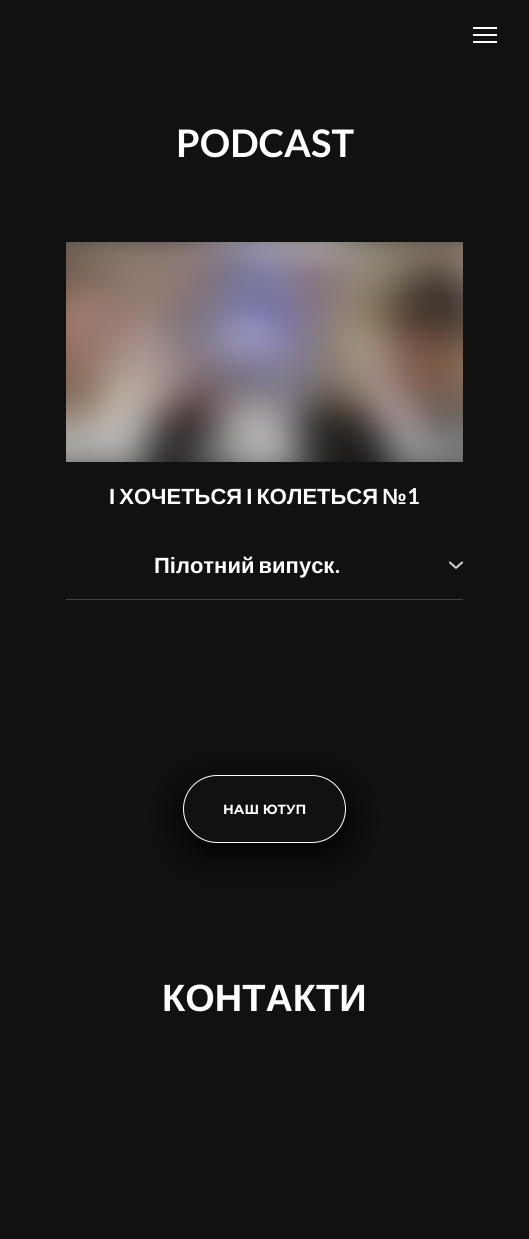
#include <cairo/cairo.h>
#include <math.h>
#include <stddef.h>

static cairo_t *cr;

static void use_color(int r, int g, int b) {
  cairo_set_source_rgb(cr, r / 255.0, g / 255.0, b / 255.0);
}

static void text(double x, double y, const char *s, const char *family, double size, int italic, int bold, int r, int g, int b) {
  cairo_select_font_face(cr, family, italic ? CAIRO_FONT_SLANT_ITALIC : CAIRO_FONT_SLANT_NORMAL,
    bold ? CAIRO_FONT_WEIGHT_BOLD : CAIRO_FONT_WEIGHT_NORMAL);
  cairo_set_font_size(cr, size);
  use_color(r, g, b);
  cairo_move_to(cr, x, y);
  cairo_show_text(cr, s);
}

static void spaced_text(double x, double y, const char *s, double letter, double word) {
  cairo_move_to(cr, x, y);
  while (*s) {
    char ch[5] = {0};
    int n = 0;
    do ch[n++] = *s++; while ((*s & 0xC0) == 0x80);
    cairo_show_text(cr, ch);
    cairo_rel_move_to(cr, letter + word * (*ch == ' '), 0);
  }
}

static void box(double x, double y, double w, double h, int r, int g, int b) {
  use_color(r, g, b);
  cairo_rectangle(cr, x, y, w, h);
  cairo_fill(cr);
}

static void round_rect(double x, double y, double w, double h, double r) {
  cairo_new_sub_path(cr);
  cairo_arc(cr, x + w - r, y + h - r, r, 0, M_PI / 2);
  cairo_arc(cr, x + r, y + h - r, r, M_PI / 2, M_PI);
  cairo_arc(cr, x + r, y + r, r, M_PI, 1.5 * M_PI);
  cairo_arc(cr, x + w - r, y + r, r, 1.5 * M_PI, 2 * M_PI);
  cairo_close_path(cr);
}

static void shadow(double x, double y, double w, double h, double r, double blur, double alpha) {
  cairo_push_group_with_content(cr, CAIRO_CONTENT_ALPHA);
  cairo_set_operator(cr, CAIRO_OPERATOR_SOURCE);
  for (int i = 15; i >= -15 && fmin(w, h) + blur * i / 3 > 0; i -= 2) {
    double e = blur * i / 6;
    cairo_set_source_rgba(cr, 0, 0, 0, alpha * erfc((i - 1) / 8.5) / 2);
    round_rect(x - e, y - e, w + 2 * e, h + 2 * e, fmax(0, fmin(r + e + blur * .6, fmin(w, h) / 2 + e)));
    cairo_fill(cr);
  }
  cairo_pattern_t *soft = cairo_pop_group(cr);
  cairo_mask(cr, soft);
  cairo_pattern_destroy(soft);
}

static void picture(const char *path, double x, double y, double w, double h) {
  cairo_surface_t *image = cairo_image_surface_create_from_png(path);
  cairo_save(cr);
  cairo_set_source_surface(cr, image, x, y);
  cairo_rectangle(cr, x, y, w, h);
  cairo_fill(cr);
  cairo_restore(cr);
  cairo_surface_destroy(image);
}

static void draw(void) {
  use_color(17, 17, 17);
  cairo_paint(cr);
  box(473, 27, 24, 2, 255, 255, 255);
  box(473, 34, 24, 2, 255, 255, 255);
  box(473, 41, 24, 2, 255, 255, 255);
  picture("img_01.png", 66, 242, 397, 220);
  picture("img_02.png", 449, 561, 15, 8);
  box(66, 599, 397, 1, 65, 65, 65);
  cairo_save(cr);
  cairo_set_fill_rule(cr, CAIRO_FILL_RULE_EVEN_ODD);
  cairo_new_path(cr);
  cairo_move_to(cr, 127, 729);
  cairo_line_to(cr, 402, 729);
  cairo_line_to(cr, 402, 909);
  cairo_line_to(cr, 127, 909);
  cairo_close_path(cr);
  cairo_move_to(cr, 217, 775);
  cairo_line_to(cr, 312, 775);
  cairo_curve_to(cr, 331, 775, 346, 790, 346, 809);
  cairo_curve_to(cr, 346, 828, 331, 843, 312, 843);
  cairo_line_to(cr, 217, 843);
  cairo_curve_to(cr, 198, 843, 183, 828, 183, 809);
  cairo_curve_to(cr, 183, 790, 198, 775, 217, 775);
  cairo_close_path(cr);
  cairo_clip(cr);
  use_color(0, 0, 0);
  shadow(182, 784, 165, 70, 35, 18, 1);
  cairo_restore(cr);
  round_rect(183.5, 775.5, 162, 67, 33.5);
  use_color(255, 255, 255);
  cairo_set_line_width(cr, 1);
  cairo_stroke(cr);
  text(176, 157, "PODCAST", "Lato", 38, 0, 1, 255, 255, 255);
  cairo_select_font_face(cr, "Liberation Sans", CAIRO_FONT_SLANT_NORMAL, CAIRO_FONT_WEIGHT_BOLD);
  cairo_set_font_size(cr, 22);
  spaced_text(109, 504, "І ХОЧЕТЬСЯ І КОЛЕТЬСЯ №", 0, -2);
  text(407, 504, "1", "Lato", 22, 0, 1, 255, 255, 255);
  cairo_select_font_face(cr, "Liberation Sans", CAIRO_FONT_SLANT_NORMAL, CAIRO_FONT_WEIGHT_BOLD);
  spaced_text(154, 573, "Пілотний випуск", 0, -2);
  text(335, 573, ".", "Lato", 22, 0, 1, 255, 255, 255);
  text(223, 814, "НАШ ЮТУП", "Montserrat", 13.25, 0, 1, 255, 255, 255);
  text(162, 1011, "КОНТАКТИ", "Liberation Sans", 38, 0, 1, 255, 255, 255);
}

int main(void) {
  cairo_surface_t *surface = cairo_image_surface_create(CAIRO_FORMAT_RGB24, 529, 1239);
  cr = cairo_create(surface);
  cairo_font_options_t *options = cairo_font_options_create();
  cairo_font_options_set_hint_metrics(options, CAIRO_HINT_METRICS_OFF);
  cairo_font_options_set_hint_style(options, CAIRO_HINT_STYLE_NONE);
  cairo_set_font_options(cr, options);
  cairo_set_miter_limit(cr, 4);
  draw();
  cairo_surface_write_to_png(surface, "out.png");
  cairo_font_options_destroy(options);
  cairo_destroy(cr);
  cairo_surface_destroy(surface);
  return 0;
}
